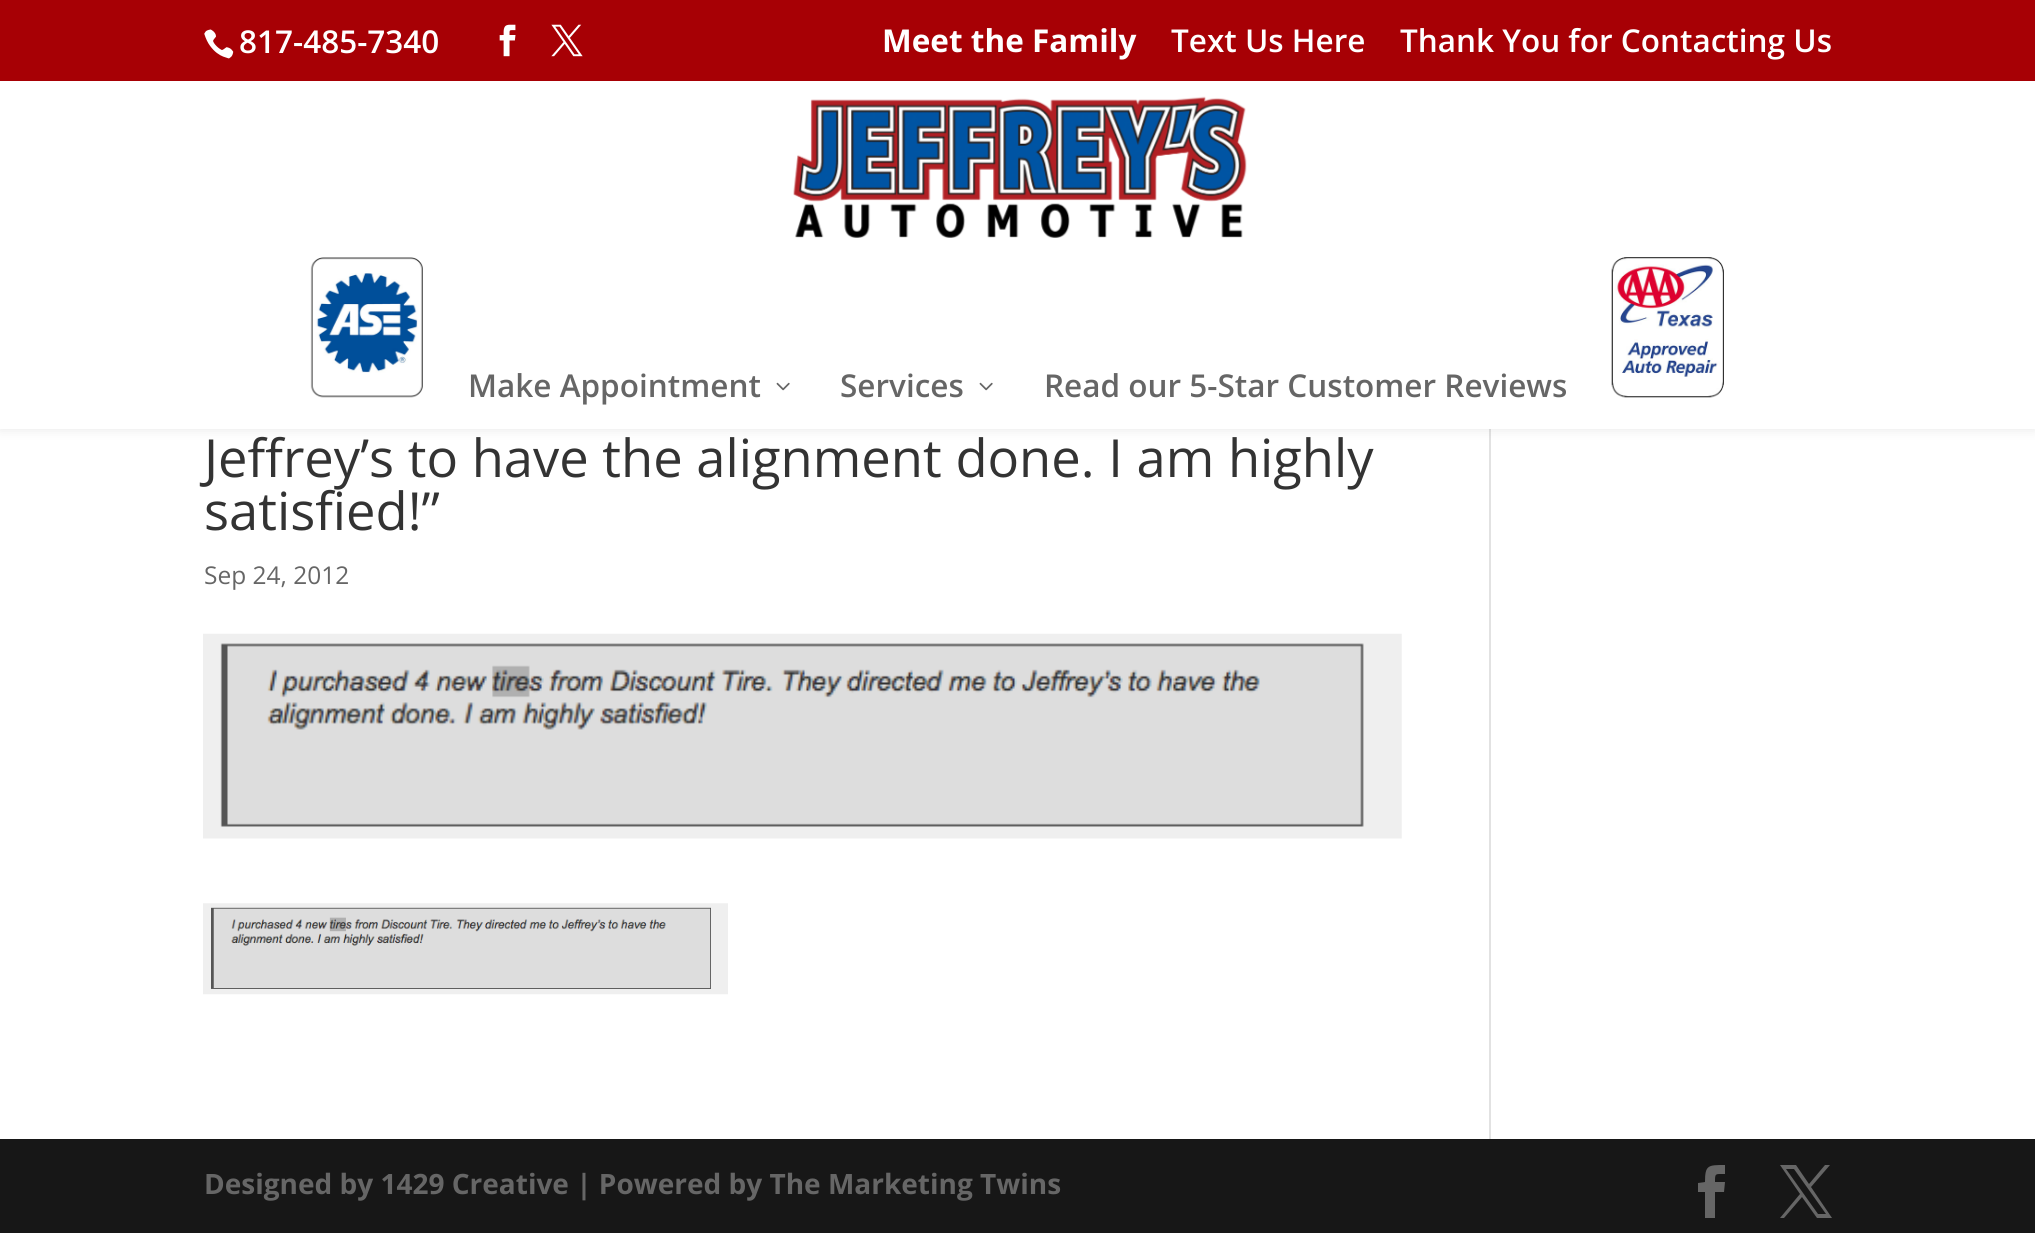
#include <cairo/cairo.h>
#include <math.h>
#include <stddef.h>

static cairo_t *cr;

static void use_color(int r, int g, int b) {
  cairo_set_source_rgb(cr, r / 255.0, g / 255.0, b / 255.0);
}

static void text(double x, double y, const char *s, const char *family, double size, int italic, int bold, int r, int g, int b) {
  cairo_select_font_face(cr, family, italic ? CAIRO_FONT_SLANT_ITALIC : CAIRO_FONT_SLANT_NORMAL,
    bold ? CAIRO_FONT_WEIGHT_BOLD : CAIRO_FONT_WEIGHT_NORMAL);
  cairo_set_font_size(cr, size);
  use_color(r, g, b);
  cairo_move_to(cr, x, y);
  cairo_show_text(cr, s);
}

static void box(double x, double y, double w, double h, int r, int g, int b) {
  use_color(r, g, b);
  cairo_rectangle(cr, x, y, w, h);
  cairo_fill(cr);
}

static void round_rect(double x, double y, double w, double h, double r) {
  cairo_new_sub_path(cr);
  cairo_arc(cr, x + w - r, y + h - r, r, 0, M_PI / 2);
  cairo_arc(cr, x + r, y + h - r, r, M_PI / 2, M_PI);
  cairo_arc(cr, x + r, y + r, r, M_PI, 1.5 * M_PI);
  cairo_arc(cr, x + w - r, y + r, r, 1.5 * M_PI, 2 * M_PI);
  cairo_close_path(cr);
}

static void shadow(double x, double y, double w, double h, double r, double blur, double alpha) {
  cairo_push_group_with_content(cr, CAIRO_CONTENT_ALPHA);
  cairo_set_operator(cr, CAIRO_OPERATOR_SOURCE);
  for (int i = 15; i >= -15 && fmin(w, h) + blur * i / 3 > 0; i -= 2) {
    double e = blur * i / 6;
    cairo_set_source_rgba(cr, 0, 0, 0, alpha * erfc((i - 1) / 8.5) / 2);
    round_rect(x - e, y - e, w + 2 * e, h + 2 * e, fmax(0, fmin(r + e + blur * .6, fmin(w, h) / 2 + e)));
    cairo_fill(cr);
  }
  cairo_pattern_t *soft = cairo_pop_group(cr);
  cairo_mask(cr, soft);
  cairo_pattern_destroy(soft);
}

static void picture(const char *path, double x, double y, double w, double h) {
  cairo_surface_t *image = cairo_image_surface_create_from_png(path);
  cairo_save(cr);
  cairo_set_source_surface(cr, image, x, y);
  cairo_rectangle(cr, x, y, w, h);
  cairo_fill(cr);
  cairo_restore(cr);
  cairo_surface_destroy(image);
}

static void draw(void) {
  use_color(255, 255, 255);
  cairo_paint(cr);
  box(1489, 429, 2, 710, 226, 226, 226);
  use_color(0, 0, 0);
  shadow(0, 81, 2035, 348, 0, 6, 0.1);
  box(0, 0, 2035, 81, 167, 0, 5);
  picture("img_01.png", 204, 29, 30, 30);
  picture("img_02.png", 499, 24, 17, 33);
  picture("img_03.png", 551, 24, 32, 33);
  box(0, 81, 2035, 348, 255, 255, 255);
  picture("img_04.png", 793, 96, 454, 142);
  picture("img_05.png", 310, 257, 113, 141);
  picture("img_06.png", 776, 382, 14, 9);
  picture("img_06.png", 979, 382, 14, 9);
  picture("img_07.png", 1611, 257, 113, 141);
  picture("img_08.png", 203, 633, 1199, 206);
  picture("img_09.png", 203, 903, 525, 92);
  box(0, 1139, 2035, 94, 23, 23, 23);
  use_color(102, 102, 102);
  cairo_new_path(cr);
  cairo_move_to(cr, 1705, 1218);
  cairo_line_to(cr, 1715, 1218);
  cairo_line_to(cr, 1715, 1192);
  cairo_line_to(cr, 1724, 1192);
  cairo_line_to(cr, 1725, 1182);
  cairo_line_to(cr, 1715, 1182);
  cairo_curve_to(cr, 1715, 1173, 1715, 1174, 1725, 1174);
  cairo_line_to(cr, 1725, 1165);
  cairo_curve_to(cr, 1708, 1165, 1705, 1165, 1705, 1182);
  cairo_line_to(cr, 1698, 1183);
  cairo_line_to(cr, 1698, 1192);
  cairo_line_to(cr, 1705, 1192);
  cairo_close_path(cr);
  cairo_fill(cr);
  cairo_new_path(cr);
  cairo_move_to(cr, 1780, 1165);
  cairo_line_to(cr, 1800, 1194);
  cairo_line_to(cr, 1780, 1218);
  cairo_line_to(cr, 1784, 1218);
  cairo_line_to(cr, 1802, 1197);
  cairo_line_to(cr, 1817, 1218);
  cairo_line_to(cr, 1832, 1218);
  cairo_line_to(cr, 1811, 1187);
  cairo_line_to(cr, 1830, 1165);
  cairo_line_to(cr, 1825, 1165);
  cairo_line_to(cr, 1809, 1184);
  cairo_line_to(cr, 1796, 1165);
  cairo_close_path(cr);
  cairo_move_to(cr, 1786, 1169);
  cairo_line_to(cr, 1794, 1169);
  cairo_line_to(cr, 1826, 1214);
  cairo_line_to(cr, 1818, 1214);
  cairo_close_path(cr);
  cairo_fill(cr);
  text(239, 53, "817-485-7340", "Open Sans SemiBold", 31.5, 0, 0, 255, 255, 255);
  text(882, 52, "Meet the Family", "Open Sans", 31.5, 0, 1, 255, 255, 255);
  text(1171, 52, "Text Us Here", "Open Sans SemiBold", 31.5, 0, 0, 255, 255, 255);
  text(1400, 52, "Thank You for Contacting Us", "Open Sans SemiBold", 31.5, 0, 0, 255, 255, 255);
  text(468, 397, "Make Appointment", "Open Sans SemiBold", 31.5, 0, 0, 102, 102, 102);
  text(840, 397, "Services", "Open Sans SemiBold", 31.5, 0, 0, 102, 102, 102);
  text(1044, 397, "Read our 5-Star Customer Reviews", "Open Sans SemiBold", 31.5, 0, 0, 102, 102, 102);
  text(204, 477, "Jeffrey’s to have the alignment done. I am highly", "Open Sans", 52.5, 0, 0, 51, 51, 51);
  text(204, 530, "satisfied!”", "Open Sans", 52.5, 0, 0, 51, 51, 51);
  text(204, 584, "Sep 24, 2012", "Open Sans", 24.5, 0, 0, 102, 102, 102);
  text(204, 1194, "Designed by 1429 Creative | Powered by The Marketing Twins", "Open Sans", 28, 0, 1, 102, 102, 102);
}

int main(void) {
  cairo_surface_t *surface = cairo_image_surface_create(CAIRO_FORMAT_RGB24, 2035, 1233);
  cr = cairo_create(surface);
  cairo_font_options_t *options = cairo_font_options_create();
  cairo_font_options_set_hint_metrics(options, CAIRO_HINT_METRICS_OFF);
  cairo_font_options_set_hint_style(options, CAIRO_HINT_STYLE_NONE);
  cairo_set_font_options(cr, options);
  cairo_set_miter_limit(cr, 4);
  draw();
  cairo_surface_write_to_png(surface, "out.png");
  cairo_font_options_destroy(options);
  cairo_destroy(cr);
  cairo_surface_destroy(surface);
  return 0;
}
